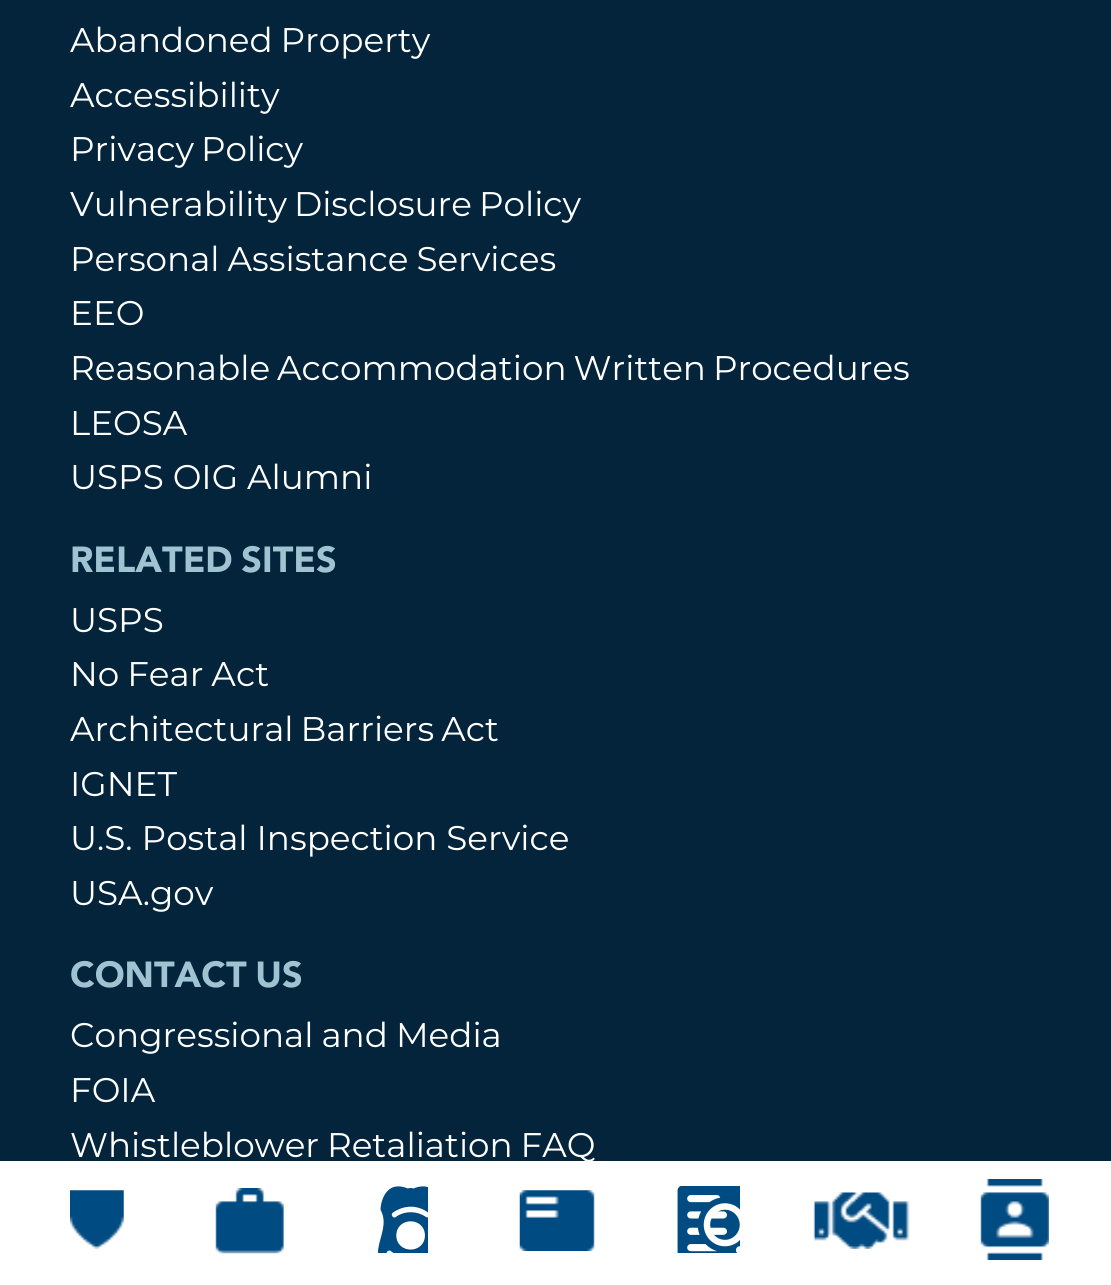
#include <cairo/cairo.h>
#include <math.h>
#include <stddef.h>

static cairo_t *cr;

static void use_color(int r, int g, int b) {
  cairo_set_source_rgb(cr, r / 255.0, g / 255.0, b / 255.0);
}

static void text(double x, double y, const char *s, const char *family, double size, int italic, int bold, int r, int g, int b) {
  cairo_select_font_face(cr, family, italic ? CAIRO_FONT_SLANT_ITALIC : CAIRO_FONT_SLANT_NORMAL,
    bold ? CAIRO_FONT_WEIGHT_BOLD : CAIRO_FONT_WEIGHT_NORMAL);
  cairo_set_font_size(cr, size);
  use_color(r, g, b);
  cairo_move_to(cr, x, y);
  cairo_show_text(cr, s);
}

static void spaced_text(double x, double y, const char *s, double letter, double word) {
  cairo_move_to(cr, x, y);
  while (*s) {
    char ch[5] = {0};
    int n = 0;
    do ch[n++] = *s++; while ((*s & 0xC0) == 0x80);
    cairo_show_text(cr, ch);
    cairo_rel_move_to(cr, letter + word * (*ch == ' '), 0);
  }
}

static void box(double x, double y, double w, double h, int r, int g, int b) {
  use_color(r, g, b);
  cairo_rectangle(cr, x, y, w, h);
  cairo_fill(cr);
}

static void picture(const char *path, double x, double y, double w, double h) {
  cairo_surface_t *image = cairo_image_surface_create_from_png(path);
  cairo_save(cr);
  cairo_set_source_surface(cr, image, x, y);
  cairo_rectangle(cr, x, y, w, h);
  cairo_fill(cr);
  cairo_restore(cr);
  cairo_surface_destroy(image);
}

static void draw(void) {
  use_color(3, 36, 59);
  cairo_paint(cr);
  box(0, 1161, 1111, 124, 255, 255, 255);
  picture("img_01.png", 70, 1190, 54, 59);
  picture("img_02.png", 215, 1188, 69, 66);
  picture("img_03.png", 378, 1186, 50, 67);
  picture("img_04.png", 519, 1190, 76, 61);
  picture("img_05.png", 677, 1186, 63, 67);
  picture("img_06.png", 813, 1192, 97, 57);
  picture("img_07.png", 980, 1179, 69, 81);
  cairo_select_font_face(cr, "Montserrat", CAIRO_FONT_SLANT_NORMAL, CAIRO_FONT_WEIGHT_NORMAL);
  cairo_set_font_size(cr, 34.2);
  spaced_text(70, 52, "Abandoned Property", 0, -1);
  text(70, 107, "Accessibility", "Montserrat", 34.2, 0, 0, 255, 255, 255);
  spaced_text(70, 161, "Privacy Policy", 0, -2);
  spaced_text(70, 216, "Vulnerability Disclosure Policy", 0, -2);
  spaced_text(70, 271, "Personal Assistance Services", 0, -1);
  text(70, 325, "EEO", "Montserrat", 34.2, 0, 0, 255, 255, 255);
  spaced_text(70, 380, "Reasonable Accommodation Written Procedures", 0, -2);
  text(70, 435, "LEOSA", "Montserrat", 34.2, 0, 0, 255, 255, 255);
  text(70, 489, "USPS OIG Alumni", "Montserrat", 34.2, 0, 0, 255, 255, 255);
  cairo_select_font_face(cr, "Avenir Black", CAIRO_FONT_SLANT_NORMAL, CAIRO_FONT_WEIGHT_NORMAL);
  cairo_set_font_size(cr, 36);
  use_color(160, 195, 210);
  spaced_text(70, 572, "RELATED SITES", 0, -2);
  text(70, 632, "USPS", "Montserrat", 34.2, 0, 0, 255, 255, 255);
  spaced_text(70, 686, "No Fear Act", 0, -1);
  spaced_text(70, 741, "Architectural Barriers Act", 0, -2);
  text(70, 796, "IGNET", "Montserrat", 34.2, 0, 0, 255, 255, 255);
  text(70, 850, "U.S. Postal Inspection Service", "Montserrat", 34.2, 0, 0, 255, 255, 255);
  text(70, 905, "USA.gov", "Montserrat", 34.2, 0, 0, 255, 255, 255);
  cairo_select_font_face(cr, "Avenir Black", CAIRO_FONT_SLANT_NORMAL, CAIRO_FONT_WEIGHT_NORMAL);
  cairo_set_font_size(cr, 36);
  use_color(160, 195, 210);
  spaced_text(70, 987, "CONTACT US", 0, -2);
  cairo_select_font_face(cr, "Montserrat", CAIRO_FONT_SLANT_NORMAL, CAIRO_FONT_WEIGHT_NORMAL);
  cairo_set_font_size(cr, 34.2);
  use_color(255, 255, 255);
  spaced_text(70, 1047, "Congressional and Media", 0, -1);
  text(70, 1102, "FOIA", "Montserrat", 34.2, 0, 0, 255, 255, 255);
  spaced_text(70, 1157, "Whistleblower Retaliation FAQ", 0, -1);
}

int main(void) {
  cairo_surface_t *surface = cairo_image_surface_create(CAIRO_FORMAT_RGB24, 1111, 1285);
  cr = cairo_create(surface);
  cairo_font_options_t *options = cairo_font_options_create();
  cairo_font_options_set_hint_metrics(options, CAIRO_HINT_METRICS_OFF);
  cairo_font_options_set_hint_style(options, CAIRO_HINT_STYLE_NONE);
  cairo_set_font_options(cr, options);
  cairo_set_miter_limit(cr, 4);
  draw();
  cairo_surface_write_to_png(surface, "out.png");
  cairo_font_options_destroy(options);
  cairo_destroy(cr);
  cairo_surface_destroy(surface);
  return 0;
}
